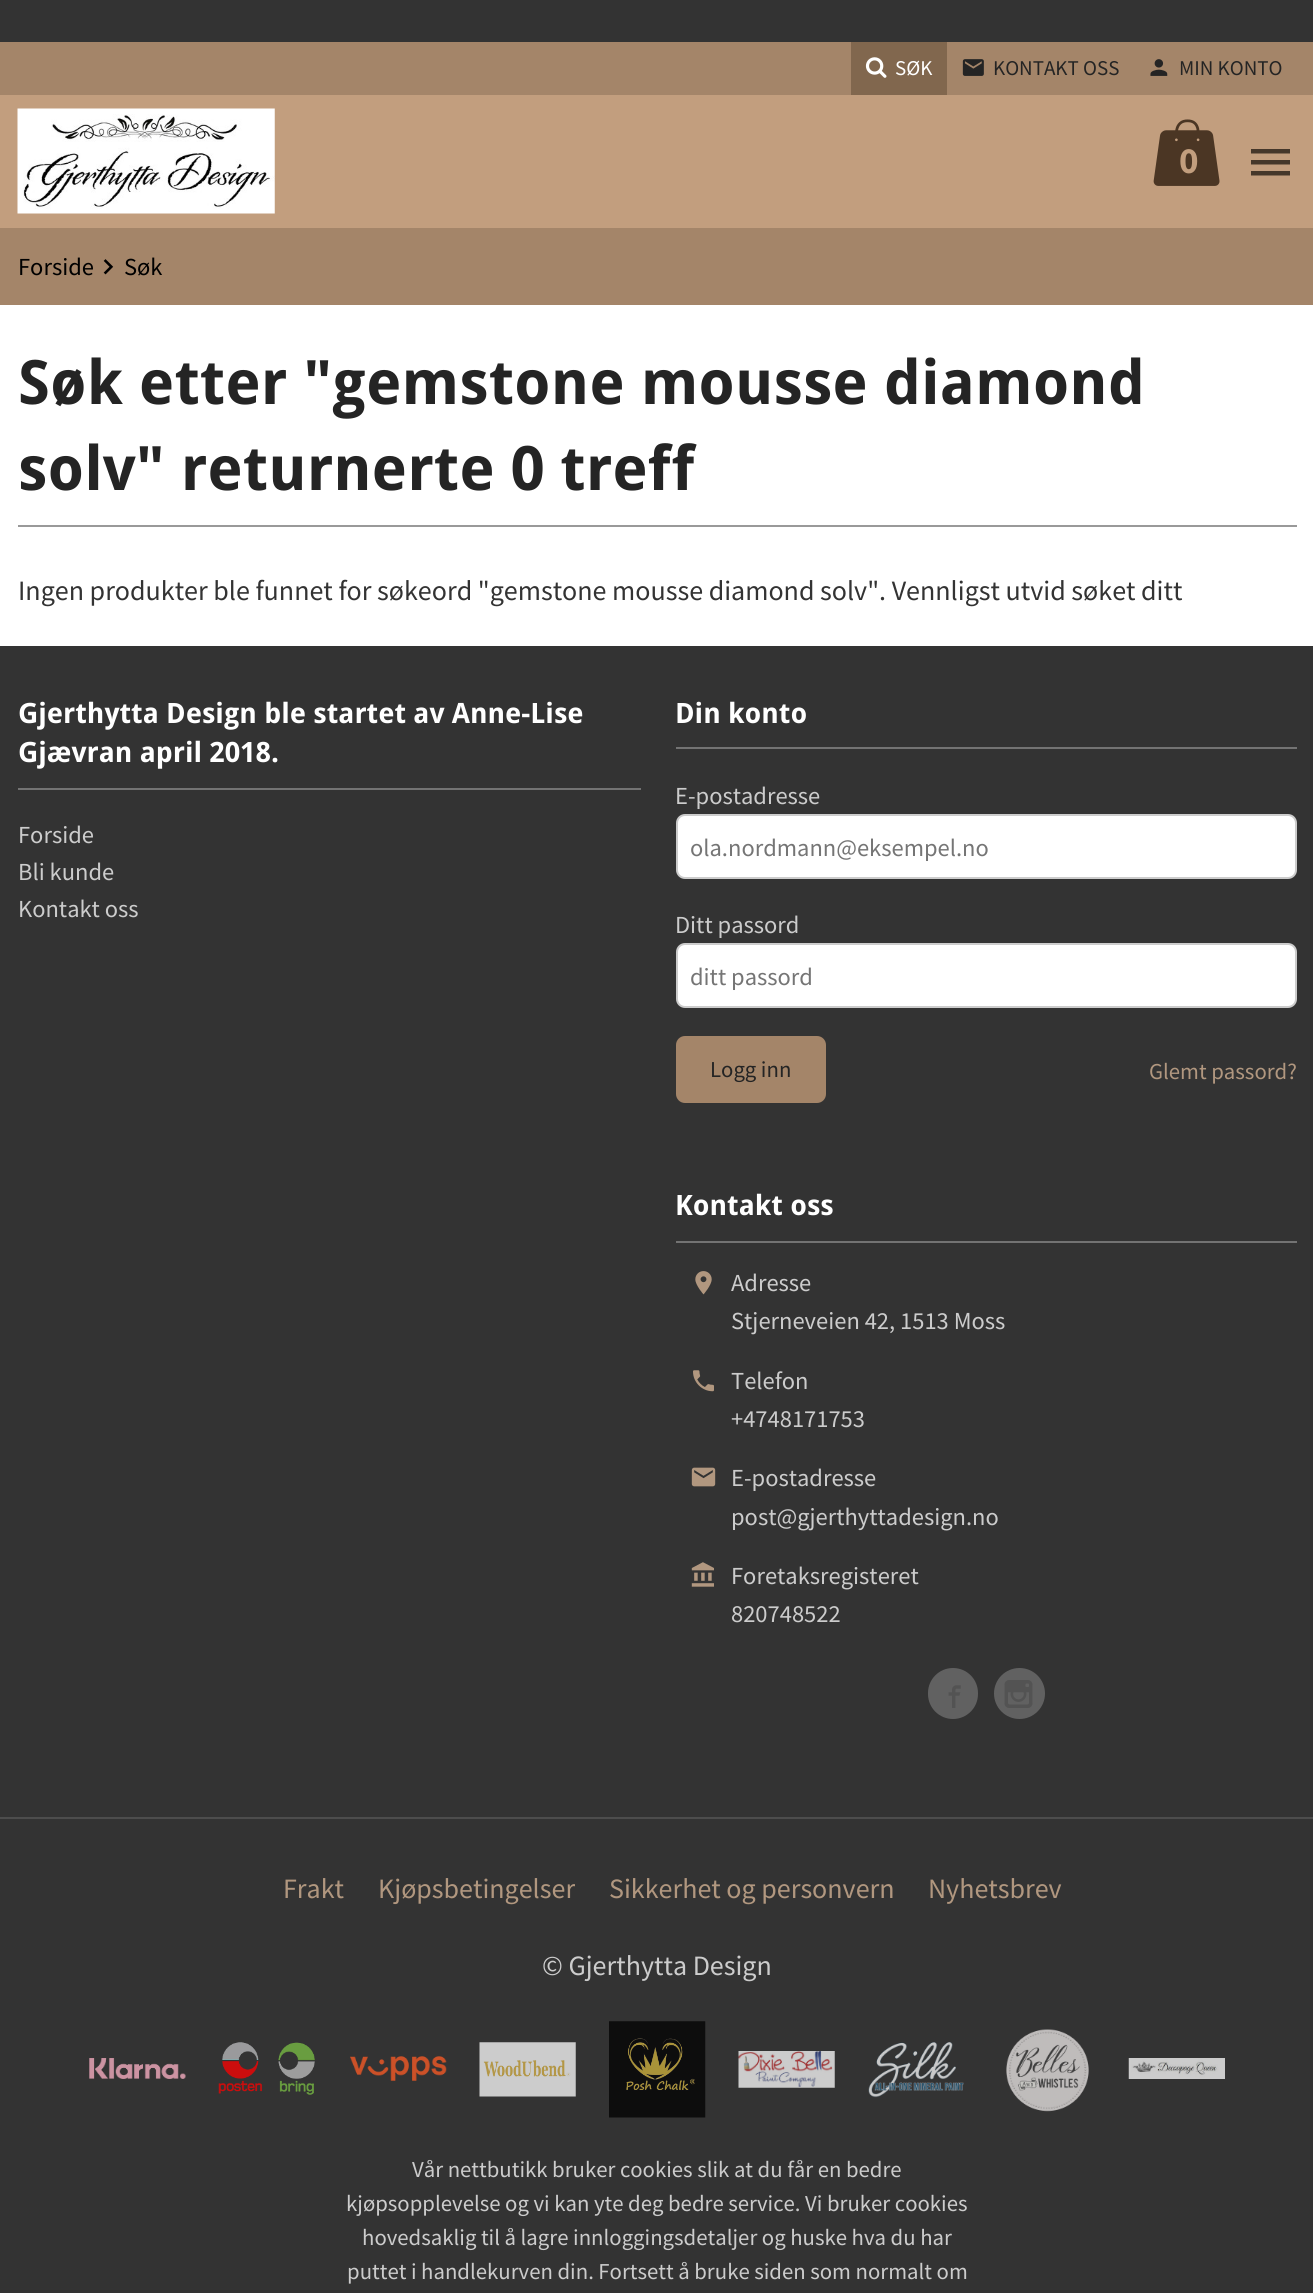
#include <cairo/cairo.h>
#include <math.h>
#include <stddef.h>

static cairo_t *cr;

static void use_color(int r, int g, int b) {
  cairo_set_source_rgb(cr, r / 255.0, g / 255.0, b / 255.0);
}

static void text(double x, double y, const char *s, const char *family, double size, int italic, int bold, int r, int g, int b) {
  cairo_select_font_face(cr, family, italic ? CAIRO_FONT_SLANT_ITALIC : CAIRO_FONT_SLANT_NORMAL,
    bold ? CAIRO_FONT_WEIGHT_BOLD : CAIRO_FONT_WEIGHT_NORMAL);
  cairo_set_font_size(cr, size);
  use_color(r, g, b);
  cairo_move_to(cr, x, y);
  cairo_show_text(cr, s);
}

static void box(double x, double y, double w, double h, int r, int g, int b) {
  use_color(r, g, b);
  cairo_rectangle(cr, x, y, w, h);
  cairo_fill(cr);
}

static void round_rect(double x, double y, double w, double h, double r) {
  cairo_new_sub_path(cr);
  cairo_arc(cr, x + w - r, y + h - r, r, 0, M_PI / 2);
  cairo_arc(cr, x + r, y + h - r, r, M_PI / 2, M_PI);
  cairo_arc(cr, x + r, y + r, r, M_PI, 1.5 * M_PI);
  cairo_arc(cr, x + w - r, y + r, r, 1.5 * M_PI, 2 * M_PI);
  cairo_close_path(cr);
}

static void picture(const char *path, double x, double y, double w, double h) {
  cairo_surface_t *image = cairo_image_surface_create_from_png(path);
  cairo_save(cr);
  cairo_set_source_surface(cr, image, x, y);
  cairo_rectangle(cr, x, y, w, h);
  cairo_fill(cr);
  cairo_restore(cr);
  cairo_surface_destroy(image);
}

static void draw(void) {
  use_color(51, 51, 51);
  cairo_paint(cr);
  box(0, 42, 1313, 53, 164, 133, 105);
  box(851, 42, 96, 53, 129, 103, 78);
  picture("img_01.png", 865, 57, 22, 21);
  picture("img_02.png", 962, 59, 22, 17);
  picture("img_03.png", 1150, 59, 18, 17);
  box(0, 95, 1313, 133, 194, 158, 126);
  picture("img_04.png", 17, 108, 258, 106);
  picture("img_05.png", 1153, 119, 67, 67);
  use_color(69, 55, 42);
  cairo_new_path(cr);
  cairo_move_to(cr, 1251, 175.5);
  cairo_line_to(cr, 1290, 175.5);
  cairo_line_to(cr, 1290, 171);
  cairo_line_to(cr, 1251, 171);
  cairo_close_path(cr);
  cairo_move_to(cr, 1251, 164.5);
  cairo_line_to(cr, 1290, 164.5);
  cairo_line_to(cr, 1290, 160);
  cairo_line_to(cr, 1251, 160);
  cairo_close_path(cr);
  cairo_move_to(cr, 1251, 149);
  cairo_line_to(cr, 1251, 153.5);
  cairo_line_to(cr, 1290, 153.5);
  cairo_line_to(cr, 1290, 149);
  cairo_close_path(cr);
  cairo_fill(cr);
  box(0, 228, 1313, 77, 164, 133, 105);
  picture("img_06.png", 103, 259, 11, 16);
  box(0, 305, 1313, 341, 255, 255, 255);
  box(18, 525, 1279, 2, 153, 153, 153);
  box(18, 788, 623, 2, 115, 115, 115);
  box(676, 747, 621, 2, 115, 115, 115);
  use_color(255, 255, 255);
  round_rect(677, 815, 619, 63, 8);
  cairo_fill_preserve(cr);
  use_color(204, 204, 204);
  cairo_stroke(cr);
  use_color(255, 255, 255);
  round_rect(677, 944, 619, 63, 8);
  cairo_fill_preserve(cr);
  use_color(204, 204, 204);
  cairo_stroke(cr);
  use_color(164, 133, 105);
  round_rect(676, 1036, 150, 67, 9);
  cairo_fill(cr);
  box(676, 1241, 621, 2, 115, 115, 115);
  picture("img_07.png", 695, 1271, 17, 24);
  picture("img_08.png", 693, 1370, 21, 22);
  picture("img_09.png", 691, 1467, 25, 20);
  picture("img_10.png", 691, 1562, 23, 25);
  use_color(97, 97, 97);
  round_rect(928, 1668, 50, 51, 25);
  cairo_fill(cr);
  picture("img_11.png", 948, 1685, 13, 23);
  cairo_arc(cr, 1019.5, 1693.5, 25.5, 0, 2 * M_PI);
  cairo_fill(cr);
  picture("img_12.png", 1004, 1680, 29, 28);
  box(0, 1817, 1313, 2, 77, 77, 77);
  picture("img_13.png", 89, 2058, 97, 21);
  picture("img_14.png", 218, 2042, 97, 53);
  picture("img_15.png", 350, 2056, 97, 25);
  picture("img_16.png", 479, 2042, 97, 55);
  picture("img_17.png", 609, 2021, 97, 97);
  picture("img_18.png", 738, 2051, 97, 37);
  picture("img_19.png", 868, 2042, 96, 56);
  picture("img_20.png", 1006, 2029, 83, 83);
  picture("img_21.png", 1128, 2058, 97, 21);
  text(895, 75, "SØK", "Source Sans Pro", 21, 0, 0, 255, 255, 255);
  text(993, 75, "KONTAKT OSS", "Source Sans Pro", 21, 0, 0, 36, 36, 36);
  text(1179, 75, "MIN KONTO", "Source Sans Pro", 21, 0, 0, 36, 36, 36);
  text(1179, 173, "0", "Source Sans Pro", 37, 0, 1, 194, 158, 126);
  text(18, 275, "Forside", "Source Sans Pro", 24.5, 0, 0, 0, 0, 0);
  text(124, 275, "Søk", "Source Sans Pro", 24.5, 0, 0, 0, 0, 0);
  text(18, 404, "Søk etter \"gemstone mousse diamond", "Droid Sans", 61.25, 0, 1, 36, 36, 36);
  text(18, 490, "solv\" returnerte 0 treff", "Droid Sans", 61.25, 0, 1, 36, 36, 36);
  text(18, 600, "Ingen produkter ble funnet for søkeord \"gemstone mousse diamond solv\". Vennligst utvid søket ditt", "Source Sans Pro", 28, 0, 0, 51, 51, 51);
  text(18, 723, "Gjerthytta Design ble startet av Anne-Lise", "Droid Sans", 28, 0, 1, 255, 255, 255);
  text(18, 762, "Gjævran april 2018.", "Droid Sans", 28, 0, 1, 255, 255, 255);
  text(18, 843, "Forside", "Source Sans Pro", 24.5, 0, 0, 204, 204, 204);
  text(18, 880, "Bli kunde", "Source Sans Pro", 24.5, 0, 0, 204, 204, 204);
  text(18, 917, "Kontakt oss", "Source Sans Pro", 24.5, 0, 0, 204, 204, 204);
  text(675, 723, "Din konto", "Droid Sans", 28, 0, 1, 255, 255, 255);
  text(675, 804, "E-postadresse", "Source Sans Pro", 24.5, 0, 0, 204, 204, 204);
  text(690, 856, "ola.nordmann@eksempel.no", "Source Sans Pro", 24.5, 0, 0, 117, 117, 117);
  text(675, 933, "Ditt passord", "Source Sans Pro", 24.5, 0, 0, 204, 204, 204);
  text(690, 985, "ditt passord", "Source Sans Pro", 24.5, 0, 0, 117, 117, 117);
  text(710, 1077, "Logg inn", "Source Sans Pro", 22.75, 0, 0, 36, 36, 36);
  text(1149, 1079, "Glemt passord?", "Source Sans Pro", 22.75, 0, 0, 177, 151, 127);
  text(675, 1215, "Kontakt oss", "Droid Sans", 28, 0, 1, 255, 255, 255);
  text(731, 1291, "Adresse", "Source Sans Pro", 24.5, 0, 0, 204, 204, 204);
  text(731, 1329, "Stjerneveien 42, 1513 Moss", "Source Sans Pro", 24.5, 0, 0, 204, 204, 204);
  text(731, 1389, "Telefon", "Source Sans Pro", 24.5, 0, 0, 204, 204, 204);
  text(731, 1427, "+4748171753", "Source Sans Pro", 24.5, 0, 0, 204, 204, 204);
  text(731, 1486, "E-postadresse", "Source Sans Pro", 24.5, 0, 0, 204, 204, 204);
  text(731, 1525, "post@gjerthyttadesign.no", "Source Sans Pro", 24.5, 0, 0, 204, 204, 204);
  text(731, 1584, "Foretaksregisteret", "Source Sans Pro", 24.5, 0, 0, 204, 204, 204);
  text(731, 1622, "820748522", "Source Sans Pro", 24.5, 0, 0, 204, 204, 204);
  text(283, 1898, "Frakt", "Source Sans Pro", 28, 0, 0, 177, 151, 127);
  text(378, 1898, "Kjøpsbetingelser", "Source Sans Pro", 28, 0, 0, 177, 151, 127);
  text(609, 1898, "Sikkerhet og personvern", "Source Sans Pro", 28, 0, 0, 177, 151, 127);
  text(928, 1898, "Nyhetsbrev", "Source Sans Pro", 28, 0, 0, 177, 151, 127);
  text(542, 1975, "© Gjerthytta Design", "Source Sans Pro", 28, 0, 0, 204, 204, 204);
  text(412, 2177, "Vår nettbutikk bruker cookies slik at du får en bedre", "Source Sans Pro", 22.75, 0, 0, 204, 204, 204);
  text(346, 2211, "kjøpsopplevelse og vi kan yte deg bedre service. Vi bruker cookies", "Source Sans Pro", 22.75, 0, 0, 204, 204, 204);
  text(362, 2245, "hovedsaklig til å lagre innloggingsdetaljer og huske hva du har", "Source Sans Pro", 22.75, 0, 0, 204, 204, 204);
  text(347, 2279, "puttet i handlekurven din. Fortsett å bruke siden som normalt om", "Source Sans Pro", 22.75, 0, 0, 204, 204, 204);
}

int main(void) {
  cairo_surface_t *surface = cairo_image_surface_create(CAIRO_FORMAT_RGB24, 1313, 2293);
  cr = cairo_create(surface);
  cairo_font_options_t *options = cairo_font_options_create();
  cairo_font_options_set_hint_metrics(options, CAIRO_HINT_METRICS_OFF);
  cairo_font_options_set_hint_style(options, CAIRO_HINT_STYLE_NONE);
  cairo_set_font_options(cr, options);
  cairo_set_miter_limit(cr, 4);
  draw();
  cairo_surface_write_to_png(surface, "out.png");
  cairo_font_options_destroy(options);
  cairo_destroy(cr);
  cairo_surface_destroy(surface);
  return 0;
}
